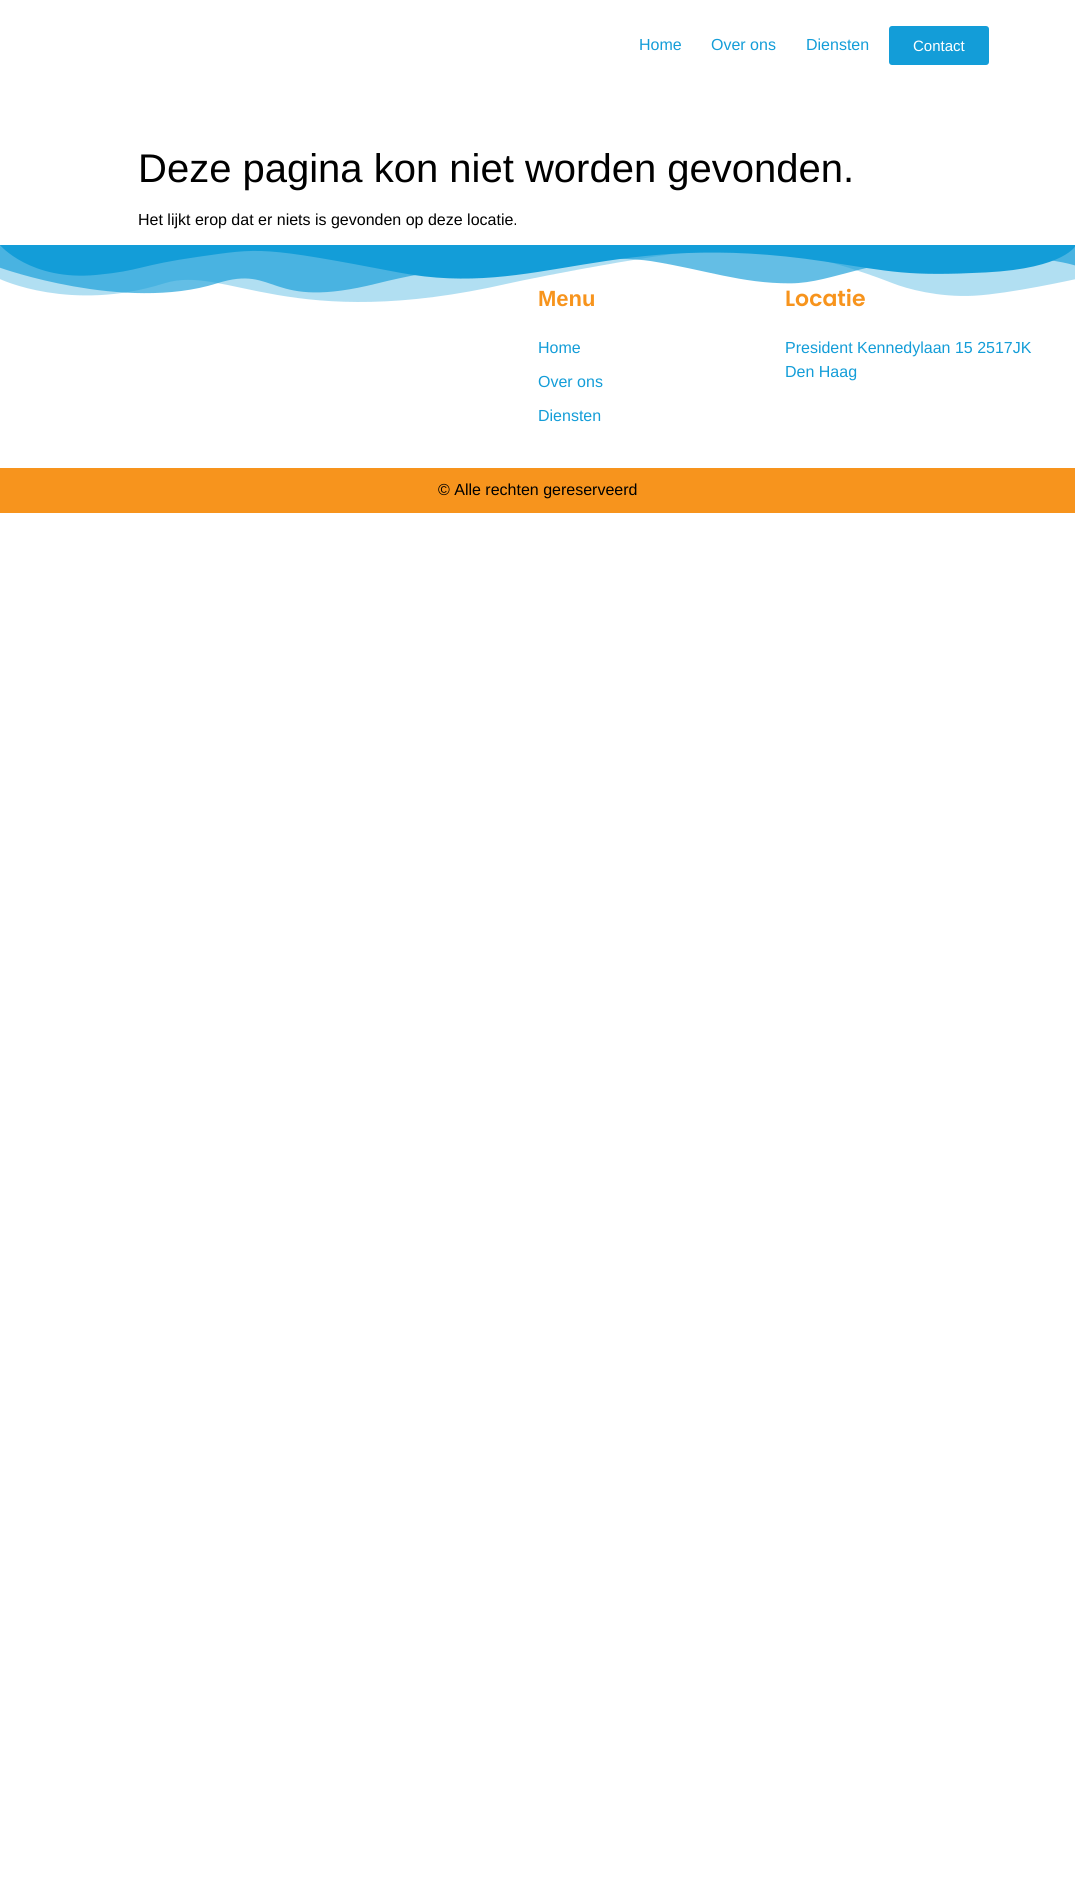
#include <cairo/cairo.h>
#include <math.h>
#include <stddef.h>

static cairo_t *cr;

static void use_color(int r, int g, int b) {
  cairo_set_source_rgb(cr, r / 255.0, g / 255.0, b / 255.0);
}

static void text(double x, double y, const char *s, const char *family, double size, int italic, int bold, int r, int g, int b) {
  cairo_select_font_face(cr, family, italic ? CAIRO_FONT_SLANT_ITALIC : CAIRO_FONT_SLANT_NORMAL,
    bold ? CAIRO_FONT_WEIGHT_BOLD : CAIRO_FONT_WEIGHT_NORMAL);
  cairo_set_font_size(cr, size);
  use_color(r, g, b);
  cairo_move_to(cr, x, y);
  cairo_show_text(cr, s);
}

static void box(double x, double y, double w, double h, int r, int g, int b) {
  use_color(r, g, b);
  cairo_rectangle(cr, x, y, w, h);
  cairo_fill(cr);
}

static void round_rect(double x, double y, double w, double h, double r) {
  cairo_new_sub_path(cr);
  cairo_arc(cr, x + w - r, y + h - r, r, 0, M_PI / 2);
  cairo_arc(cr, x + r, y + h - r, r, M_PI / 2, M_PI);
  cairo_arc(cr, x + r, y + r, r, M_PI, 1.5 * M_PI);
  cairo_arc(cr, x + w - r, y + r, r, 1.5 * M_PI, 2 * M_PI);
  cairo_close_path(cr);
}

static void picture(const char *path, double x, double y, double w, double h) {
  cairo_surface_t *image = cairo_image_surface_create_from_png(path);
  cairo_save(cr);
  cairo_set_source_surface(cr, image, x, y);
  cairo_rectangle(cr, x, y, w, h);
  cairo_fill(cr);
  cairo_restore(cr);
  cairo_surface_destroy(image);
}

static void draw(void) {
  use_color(255, 255, 255);
  cairo_paint(cr);
  use_color(19, 157, 216);
  round_rect(889, 26, 100, 39, 3);
  cairo_fill(cr);
  picture("img_01.png", 0, 245, 1075, 57);
  box(0, 468, 1075, 45, 247, 148, 29);
  text(639, 50, "Home", "Liberation Sans", 16, 0, 0, 19, 157, 216);
  text(711, 50, "Over ons", "Liberation Sans", 16, 0, 0, 19, 157, 216);
  text(806, 50, "Diensten", "Liberation Sans", 16, 0, 0, 19, 157, 216);
  text(913, 51, "Contact", "Liberation Sans", 15, 0, 0, 255, 255, 255);
  text(138, 182, "Deze pagina kon niet worden gevonden.", "Liberation Sans", 40, 0, 0, 0, 0, 0);
  text(138, 225, "Het lijkt erop dat er niets is gevonden op deze locatie.", "Liberation Sans", 16, 0, 0, 0, 0, 0);
  text(538, 306, "Menu", "Liberation Sans", 22, 0, 1, 247, 148, 29);
  text(538, 353, "Home", "Liberation Sans", 16, 0, 0, 19, 157, 216);
  text(538, 387, "Over ons", "Liberation Sans", 16, 0, 0, 19, 157, 216);
  text(538, 421, "Diensten", "Liberation Sans", 16, 0, 0, 19, 157, 216);
  text(785, 306, "Locatie", "Poppins SemiBold", 22, 0, 0, 247, 148, 29);
  text(785, 353, "President Kennedylaan 15 2517JK", "Liberation Sans", 16, 0, 0, 19, 157, 216);
  text(785, 377, "Den Haag", "Liberation Sans", 16, 0, 0, 19, 157, 216);
  text(438, 495, "© Alle rechten gereserveerd", "Liberation Sans", 16, 0, 0, 0, 0, 0);
}

int main(void) {
  cairo_surface_t *surface = cairo_image_surface_create(CAIRO_FORMAT_RGB24, 1075, 1897);
  cr = cairo_create(surface);
  cairo_font_options_t *options = cairo_font_options_create();
  cairo_font_options_set_hint_metrics(options, CAIRO_HINT_METRICS_OFF);
  cairo_font_options_set_hint_style(options, CAIRO_HINT_STYLE_NONE);
  cairo_set_font_options(cr, options);
  cairo_set_miter_limit(cr, 4);
  draw();
  cairo_surface_write_to_png(surface, "out.png");
  cairo_font_options_destroy(options);
  cairo_destroy(cr);
  cairo_surface_destroy(surface);
  return 0;
}
